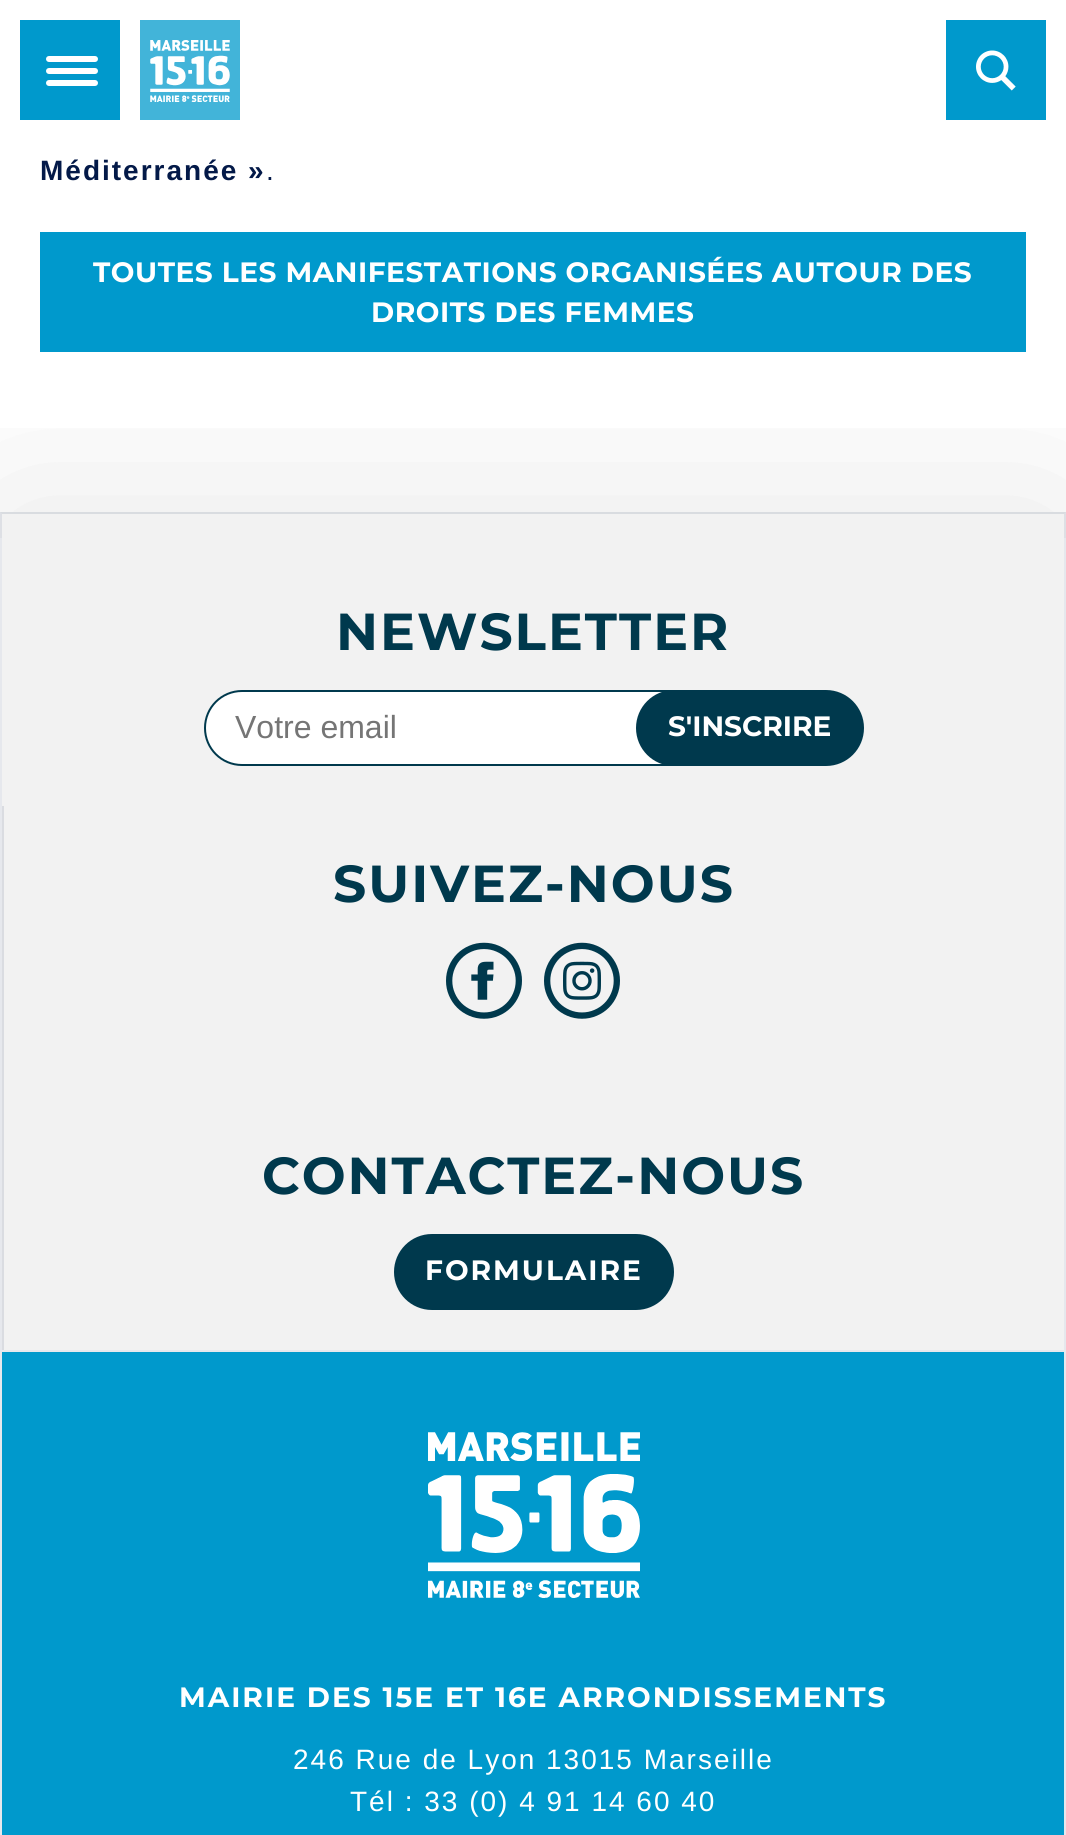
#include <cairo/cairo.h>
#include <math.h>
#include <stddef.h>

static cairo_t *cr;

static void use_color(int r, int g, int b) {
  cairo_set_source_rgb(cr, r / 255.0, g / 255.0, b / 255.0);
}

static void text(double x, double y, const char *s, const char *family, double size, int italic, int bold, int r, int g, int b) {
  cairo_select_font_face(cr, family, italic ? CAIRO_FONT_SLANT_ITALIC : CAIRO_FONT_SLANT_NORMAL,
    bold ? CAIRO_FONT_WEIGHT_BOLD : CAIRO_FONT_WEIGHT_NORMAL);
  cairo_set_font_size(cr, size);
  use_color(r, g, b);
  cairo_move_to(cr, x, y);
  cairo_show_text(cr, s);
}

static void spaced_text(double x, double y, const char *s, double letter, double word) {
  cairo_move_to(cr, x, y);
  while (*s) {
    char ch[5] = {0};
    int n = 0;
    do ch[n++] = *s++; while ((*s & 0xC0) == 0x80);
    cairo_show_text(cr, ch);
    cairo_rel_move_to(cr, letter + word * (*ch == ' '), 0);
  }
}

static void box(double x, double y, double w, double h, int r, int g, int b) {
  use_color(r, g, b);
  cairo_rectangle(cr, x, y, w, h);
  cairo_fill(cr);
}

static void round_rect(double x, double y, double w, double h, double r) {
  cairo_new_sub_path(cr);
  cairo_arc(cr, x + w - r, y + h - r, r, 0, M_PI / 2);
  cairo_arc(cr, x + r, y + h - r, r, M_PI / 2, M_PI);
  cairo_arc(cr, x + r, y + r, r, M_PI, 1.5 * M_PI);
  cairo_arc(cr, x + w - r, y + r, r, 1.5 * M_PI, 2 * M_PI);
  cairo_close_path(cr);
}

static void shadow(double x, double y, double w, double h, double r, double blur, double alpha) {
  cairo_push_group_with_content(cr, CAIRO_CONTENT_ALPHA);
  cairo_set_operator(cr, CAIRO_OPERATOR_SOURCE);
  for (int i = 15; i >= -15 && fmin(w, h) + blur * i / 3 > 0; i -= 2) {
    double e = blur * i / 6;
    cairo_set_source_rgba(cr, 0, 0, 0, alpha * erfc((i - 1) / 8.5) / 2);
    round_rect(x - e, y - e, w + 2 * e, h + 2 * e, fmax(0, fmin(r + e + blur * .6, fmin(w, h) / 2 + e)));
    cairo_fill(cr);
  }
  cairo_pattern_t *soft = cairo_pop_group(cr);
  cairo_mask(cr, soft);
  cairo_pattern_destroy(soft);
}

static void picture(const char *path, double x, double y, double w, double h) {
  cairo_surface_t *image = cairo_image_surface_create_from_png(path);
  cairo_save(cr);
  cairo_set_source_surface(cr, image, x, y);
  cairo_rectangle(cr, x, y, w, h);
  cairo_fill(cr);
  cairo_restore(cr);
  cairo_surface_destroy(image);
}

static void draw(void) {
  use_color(255, 255, 255);
  cairo_paint(cr);
  cairo_save(cr);
  cairo_rectangle(cr, 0, 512, 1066, 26);
  cairo_clip(cr);
  use_color(0, 0, 0);
  shadow(0, -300, 1066, 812, 0, 100, 0.1);
  cairo_restore(cr);
  box(20, 20, 100, 100, 0, 153, 204);
  use_color(255, 255, 255);
  round_rect(46, 56, 52, 6, 3);
  cairo_fill(cr);
  round_rect(46, 68, 52, 6, 3);
  cairo_fill(cr);
  round_rect(46, 80, 52, 6, 3);
  cairo_fill(cr);
  box(140, 20, 100, 100, 66, 180, 217);
  picture("img_01.png", 150, 40, 80, 62);
  box(946, 20, 100, 100, 0, 153, 204);
  picture("img_02.png", 976, 50, 40, 41);
  box(40, 232, 986, 120, 0, 153, 204);
  cairo_save(cr);
  cairo_rectangle(cr, 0, 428, 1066, 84);
  cairo_clip(cr);
  use_color(0, 0, 0);
  shadow(0, 512, 1066, 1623, 0, 100, 0.1);
  cairo_restore(cr);
  use_color(217, 220, 224);
  cairo_new_path(cr);
  cairo_move_to(cr, 0, 512);
  cairo_line_to(cr, 1066, 512);
  cairo_line_to(cr, 1064, 514);
  cairo_line_to(cr, 2, 514);
  cairo_close_path(cr);
  cairo_fill(cr);
  cairo_set_source_rgba(cr, 0.012, 0.098, 0.282, 0.1);
  cairo_new_path(cr);
  cairo_move_to(cr, 1066, 512);
  cairo_line_to(cr, 1066, 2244);
  cairo_line_to(cr, 1064, 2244);
  cairo_line_to(cr, 1064, 514);
  cairo_close_path(cr);
  cairo_fill(cr);
  cairo_new_path(cr);
  cairo_move_to(cr, 0, 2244);
  cairo_line_to(cr, 0, 512);
  cairo_line_to(cr, 2, 514);
  cairo_line_to(cr, 2, 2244);
  cairo_close_path(cr);
  cairo_fill(cr);
  box(2, 1350, 1062, 2, 230, 232, 237);
  box(2, 514, 1062, 292, 242, 242, 242);
  use_color(255, 255, 255);
  cairo_new_path(cr);
  cairo_move_to(cr, 242, 691);
  cairo_line_to(cr, 715, 691);
  cairo_line_to(cr, 715, 765);
  cairo_line_to(cr, 242, 765);
  cairo_curve_to(cr, 221.5, 765, 205, 748.5, 205, 728);
  cairo_curve_to(cr, 205, 707.5, 221.5, 691, 242, 691);
  cairo_close_path(cr);
  cairo_fill_preserve(cr);
  use_color(0, 57, 77);
  cairo_stroke(cr);
  round_rect(637, 691, 226, 74, 37);
  cairo_fill_preserve(cr);
  cairo_stroke(cr);
  box(4, 806, 1060, 544, 242, 242, 242);
  box(2, 806, 2, 544, 218, 220, 225);
  picture("img_03.png", 446, 942, 76, 77);
  picture("img_04.png", 544, 942, 76, 77);
  use_color(0, 57, 77);
  round_rect(395, 1235, 278, 74, 37);
  cairo_fill_preserve(cr);
  cairo_stroke(cr);
  box(2, 1352, 1062, 483, 0, 153, 204);
  picture("img_05.png", 428, 1432, 212, 166);
  cairo_select_font_face(cr, "Liberation Sans", CAIRO_FONT_SLANT_NORMAL, CAIRO_FONT_WEIGHT_BOLD);
  cairo_set_font_size(cr, 28);
  use_color(3, 25, 72);
  spaced_text(40, 180, "Méditerranée »", 2, 0);
  cairo_select_font_face(cr, "Liberation Sans", CAIRO_FONT_SLANT_NORMAL, CAIRO_FONT_WEIGHT_NORMAL);
  spaced_text(266, 180, ".", 2, 0);
  cairo_select_font_face(cr, "Montserrat", CAIRO_FONT_SLANT_NORMAL, CAIRO_FONT_WEIGHT_BOLD);
  use_color(255, 255, 255);
  spaced_text(93, 282, "TOUTES LES MANIFESTATIONS ORGANISÉES AUTOUR DES", 0.55, 0);
  spaced_text(371, 322, "DROITS DES FEMMES", 0.55, 0);
  cairo_set_font_size(cr, 52);
  use_color(0, 57, 77);
  spaced_text(336, 650, "NEWSLETTER", 2, 0);
  text(235, 738, "Votre email", "Liberation Sans", 32, 0, 0, 117, 117, 117);
  text(668, 736, "S'INSCRIRE", "Montserrat", 28, 0, 1, 255, 255, 255);
  cairo_set_font_size(cr, 52);
  use_color(0, 57, 77);
  spaced_text(333, 902, "SUIVEZ-NOUS", 2, 0);
  spaced_text(262, 1194, "CONTACTEZ-NOUS", 2, 0);
  cairo_set_font_size(cr, 28);
  use_color(255, 255, 255);
  spaced_text(425, 1280, "FORMULAIRE", 2, 0);
  spaced_text(179, 1707, "MAIRIE DES 15E ET 16E ARRONDISSEMENTS", 2, 0);
  cairo_select_font_face(cr, "Liberation Sans", CAIRO_FONT_SLANT_NORMAL, CAIRO_FONT_WEIGHT_NORMAL);
  spaced_text(293, 1769, "246 Rue de Lyon 13015 Marseille", 2, 0);
  spaced_text(350, 1811, "Tél : 33 (0) 4 91 14 60 40", 2, 0);
}

int main(void) {
  cairo_surface_t *surface = cairo_image_surface_create(CAIRO_FORMAT_RGB24, 1066, 1835);
  cr = cairo_create(surface);
  cairo_font_options_t *options = cairo_font_options_create();
  cairo_font_options_set_hint_metrics(options, CAIRO_HINT_METRICS_OFF);
  cairo_font_options_set_hint_style(options, CAIRO_HINT_STYLE_NONE);
  cairo_set_font_options(cr, options);
  cairo_set_miter_limit(cr, 4);
  draw();
  cairo_surface_write_to_png(surface, "out.png");
  cairo_font_options_destroy(options);
  cairo_destroy(cr);
  cairo_surface_destroy(surface);
  return 0;
}
